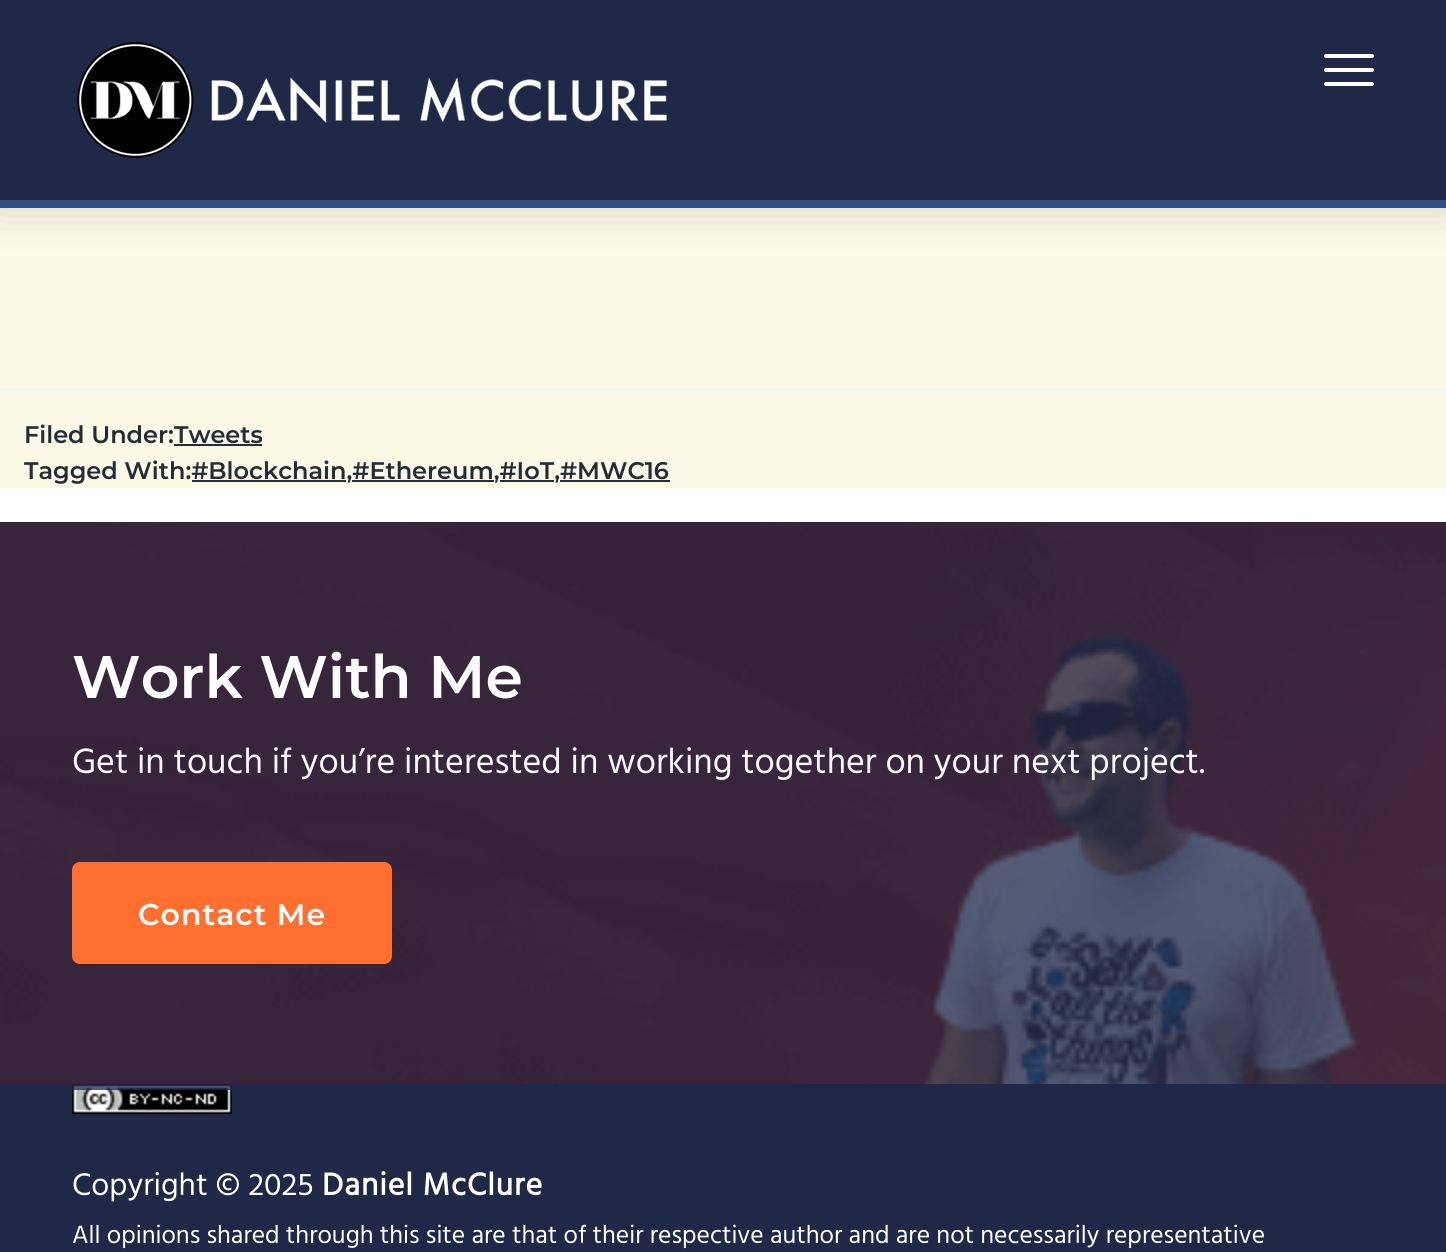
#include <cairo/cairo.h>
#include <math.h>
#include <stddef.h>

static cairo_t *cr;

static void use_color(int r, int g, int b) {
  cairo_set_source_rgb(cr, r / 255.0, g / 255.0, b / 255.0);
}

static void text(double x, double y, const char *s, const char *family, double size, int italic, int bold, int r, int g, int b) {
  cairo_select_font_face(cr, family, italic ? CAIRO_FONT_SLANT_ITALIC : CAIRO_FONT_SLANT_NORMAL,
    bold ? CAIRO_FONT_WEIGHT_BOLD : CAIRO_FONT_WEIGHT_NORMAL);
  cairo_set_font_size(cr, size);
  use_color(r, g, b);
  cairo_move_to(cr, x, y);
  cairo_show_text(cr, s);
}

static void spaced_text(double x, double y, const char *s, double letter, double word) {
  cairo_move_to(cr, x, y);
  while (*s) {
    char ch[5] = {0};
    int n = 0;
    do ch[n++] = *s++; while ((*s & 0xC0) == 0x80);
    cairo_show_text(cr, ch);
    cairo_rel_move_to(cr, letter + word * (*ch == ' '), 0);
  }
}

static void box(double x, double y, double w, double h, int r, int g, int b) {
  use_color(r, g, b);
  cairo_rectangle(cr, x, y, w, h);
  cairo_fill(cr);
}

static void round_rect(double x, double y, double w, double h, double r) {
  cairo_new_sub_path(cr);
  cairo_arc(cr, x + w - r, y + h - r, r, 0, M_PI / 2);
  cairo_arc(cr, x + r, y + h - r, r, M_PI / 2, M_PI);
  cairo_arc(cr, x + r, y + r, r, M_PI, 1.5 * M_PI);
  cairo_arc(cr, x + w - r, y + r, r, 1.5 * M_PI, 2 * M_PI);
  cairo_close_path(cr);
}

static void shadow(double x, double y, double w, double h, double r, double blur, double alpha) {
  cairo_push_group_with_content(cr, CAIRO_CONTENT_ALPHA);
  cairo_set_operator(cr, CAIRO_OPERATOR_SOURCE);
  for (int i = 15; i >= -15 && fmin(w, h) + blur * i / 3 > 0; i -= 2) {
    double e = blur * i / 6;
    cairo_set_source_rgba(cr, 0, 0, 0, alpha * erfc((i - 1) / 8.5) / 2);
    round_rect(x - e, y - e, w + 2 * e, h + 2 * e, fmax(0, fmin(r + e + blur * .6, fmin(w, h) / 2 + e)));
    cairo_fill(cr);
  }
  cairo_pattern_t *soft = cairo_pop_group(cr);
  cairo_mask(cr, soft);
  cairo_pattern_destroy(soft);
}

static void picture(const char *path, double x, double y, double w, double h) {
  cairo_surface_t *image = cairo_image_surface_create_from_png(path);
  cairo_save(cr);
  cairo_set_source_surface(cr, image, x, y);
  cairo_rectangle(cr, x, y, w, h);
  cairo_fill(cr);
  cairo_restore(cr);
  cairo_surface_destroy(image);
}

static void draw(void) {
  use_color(255, 255, 255);
  cairo_paint(cr);
  box(0, 208, 1446, 280, 252, 249, 231);
  use_color(35, 44, 57);
  shadow(0, 0, 1446, 208, 0, 20, 0.2);
  box(0, 0, 1446, 200, 32, 40, 71);
  box(0, 200, 1446, 8, 48, 77, 124);
  picture("img_01.png", 77, 42, 590, 116);
  use_color(255, 255, 255);
  round_rect(1324, 68, 50, 4, 2);
  cairo_fill(cr);
  round_rect(1324, 54, 50, 4, 2);
  cairo_fill(cr);
  round_rect(1324, 82, 50, 4, 2);
  cairo_fill(cr);
  box(0, 388, 1446, 4, 245, 245, 245);
  box(174, 444, 88, 2, 35, 44, 57);
  box(192, 480, 154, 2, 35, 44, 57);
  box(352, 480, 142, 2, 35, 44, 57);
  box(500, 480, 54, 2, 35, 44, 57);
  box(560, 480, 110, 2, 35, 44, 57);
  box(0, 594, 1446, 658, 32, 40, 71);
  picture("img_02.png", 0, 522, 1446, 562);
  picture("img_03.png", 72, 1084, 160, 30);
  cairo_set_source_rgba(cr, 0.125, 0.157, 0.278, 0.75);
  cairo_rectangle(cr, 0, 522, 1446, 568);
  cairo_fill(cr);
  use_color(255, 111, 48);
  round_rect(72, 862, 320, 102, 8);
  cairo_fill(cr);
  text(24, 443, "Filed Under:Tweets", "Montserrat Thin", 24, 0, 0, 35, 44, 57);
  text(24, 479, "Tagged With:#Blockchain,#Ethereum,#IoT,#MWC16", "Montserrat Thin", 24, 0, 0, 35, 44, 57);
  text(72, 698, "Work With Me", "Montserrat Thin", 60, 0, 0, 255, 255, 255);
  text(72, 773, "Get in touch if you’re interested in working together on your next project.", "Hind", 36, 0, 0, 246, 247, 248);
  cairo_select_font_face(cr, "Montserrat Thin", CAIRO_FONT_SLANT_NORMAL, CAIRO_FONT_WEIGHT_NORMAL);
  cairo_set_font_size(cr, 30);
  use_color(255, 255, 255);
  spaced_text(138, 925, "Contact Me", 1, 0);
  text(72, 1195, "Copyright © 2025", "Hind", 32, 0, 0, 255, 255, 255);
  cairo_select_font_face(cr, "Hind", CAIRO_FONT_SLANT_NORMAL, CAIRO_FONT_WEIGHT_BOLD);
  spaced_text(322, 1195, "Daniel McClure", 1, 0);
  text(72, 1243, "All opinions shared through this site are that of their respective author and are not necessarily representative", "Hind", 25.6, 0, 0, 255, 255, 255);
}

int main(void) {
  cairo_surface_t *surface = cairo_image_surface_create(CAIRO_FORMAT_RGB24, 1446, 1252);
  cr = cairo_create(surface);
  cairo_font_options_t *options = cairo_font_options_create();
  cairo_font_options_set_hint_metrics(options, CAIRO_HINT_METRICS_OFF);
  cairo_font_options_set_hint_style(options, CAIRO_HINT_STYLE_NONE);
  cairo_set_font_options(cr, options);
  cairo_set_miter_limit(cr, 4);
  draw();
  cairo_surface_write_to_png(surface, "out.png");
  cairo_font_options_destroy(options);
  cairo_destroy(cr);
  cairo_surface_destroy(surface);
  return 0;
}
